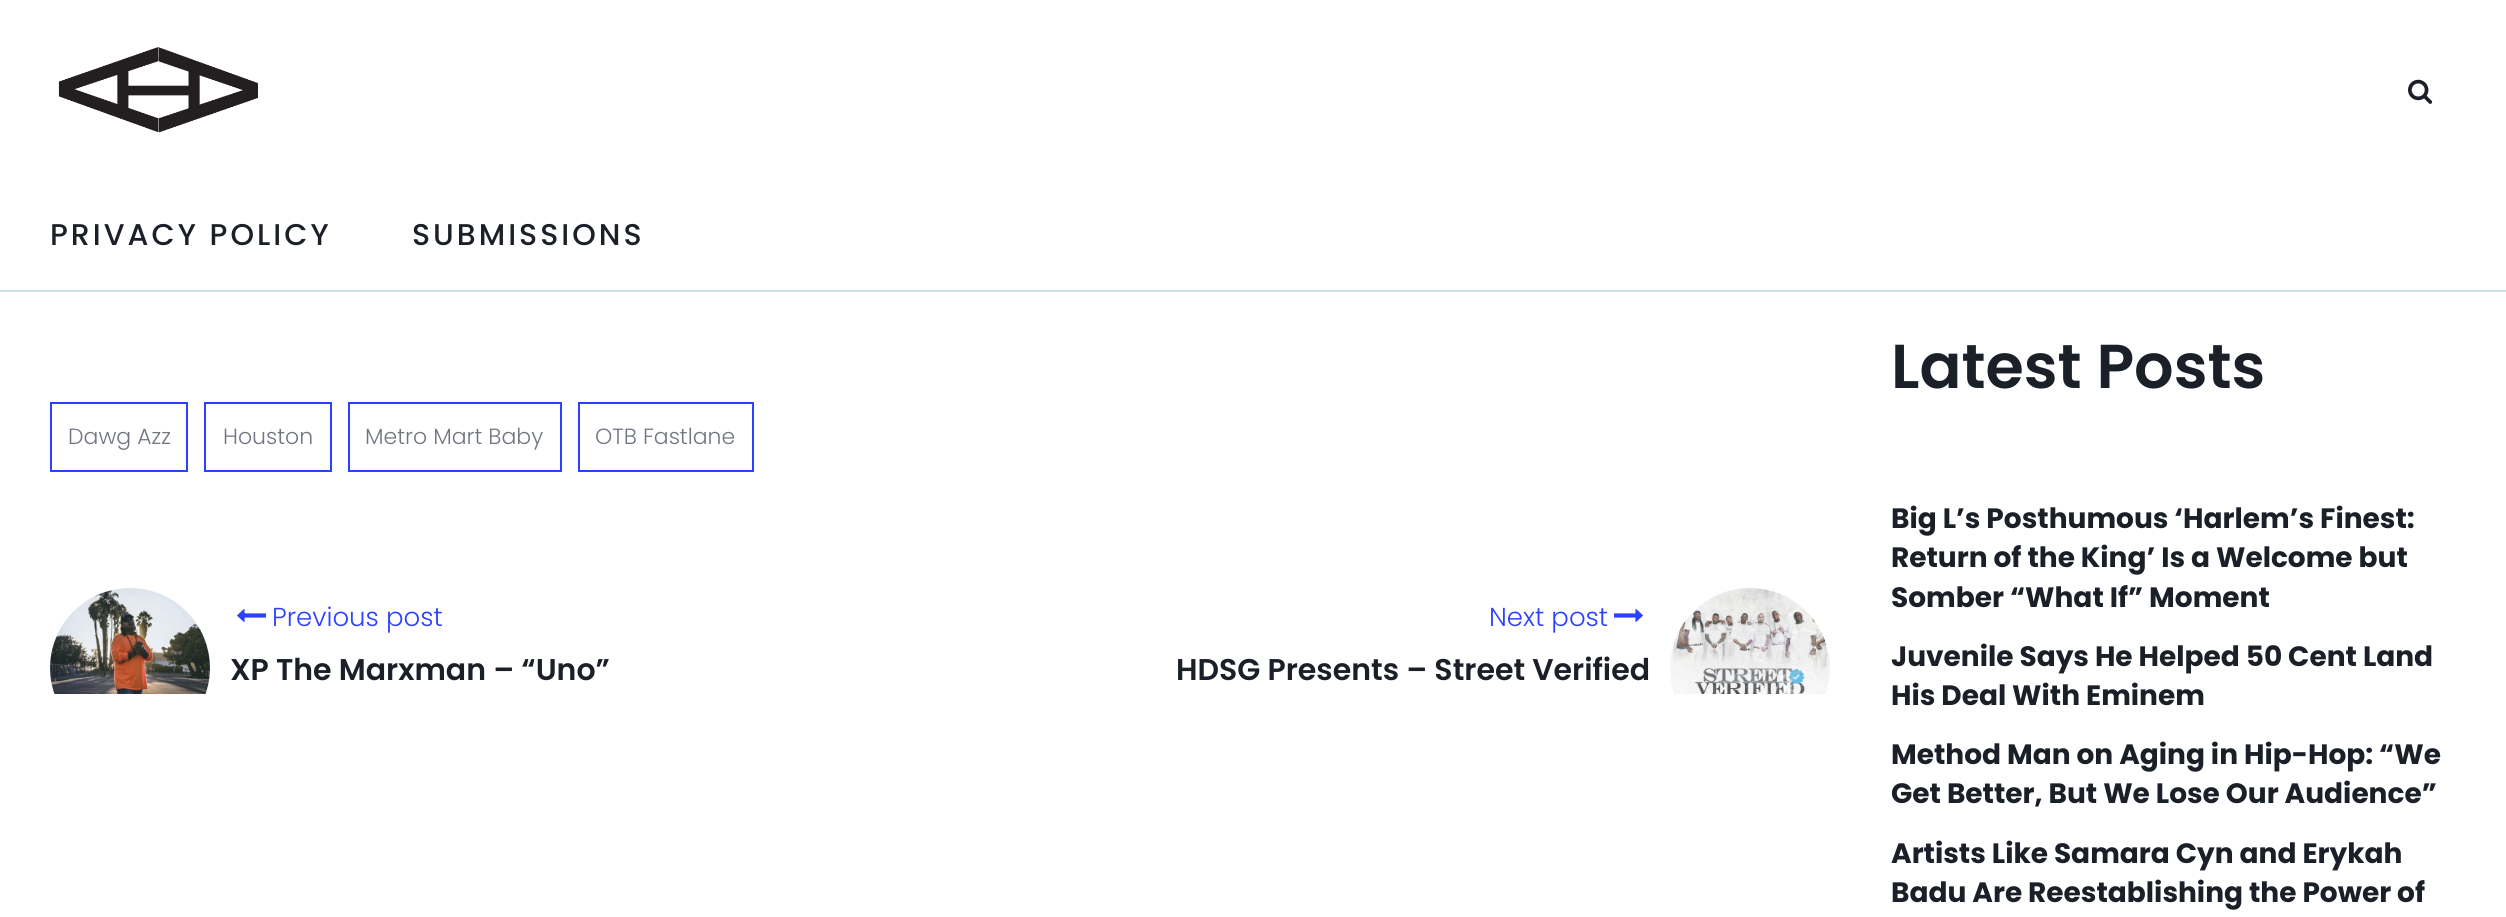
#include <cairo/cairo.h>
#include <math.h>
#include <stddef.h>

static cairo_t *cr;

static void use_color(int r, int g, int b) {
  cairo_set_source_rgb(cr, r / 255.0, g / 255.0, b / 255.0);
}

static void text(double x, double y, const char *s, const char *family, double size, int italic, int bold, int r, int g, int b) {
  cairo_select_font_face(cr, family, italic ? CAIRO_FONT_SLANT_ITALIC : CAIRO_FONT_SLANT_NORMAL,
    bold ? CAIRO_FONT_WEIGHT_BOLD : CAIRO_FONT_WEIGHT_NORMAL);
  cairo_set_font_size(cr, size);
  use_color(r, g, b);
  cairo_move_to(cr, x, y);
  cairo_show_text(cr, s);
}

static void spaced_text(double x, double y, const char *s, double letter, double word) {
  cairo_move_to(cr, x, y);
  while (*s) {
    char ch[5] = {0};
    int n = 0;
    do ch[n++] = *s++; while ((*s & 0xC0) == 0x80);
    cairo_show_text(cr, ch);
    cairo_rel_move_to(cr, letter + word * (*ch == ' '), 0);
  }
}

static void box(double x, double y, double w, double h, int r, int g, int b) {
  use_color(r, g, b);
  cairo_rectangle(cr, x, y, w, h);
  cairo_fill(cr);
}

static void picture(const char *path, double x, double y, double w, double h) {
  cairo_surface_t *image = cairo_image_surface_create_from_png(path);
  cairo_save(cr);
  cairo_set_source_surface(cr, image, x, y);
  cairo_rectangle(cr, x, y, w, h);
  cairo_fill(cr);
  cairo_restore(cr);
  cairo_surface_destroy(image);
}

static void draw(void) {
  use_color(255, 255, 255);
  cairo_paint(cr);
  picture("img_01.png", 58, 47, 200, 86);
  picture("img_02.png", 2408, 79, 25, 25);
  box(0, 290, 2506, 2, 207, 224, 233);
  cairo_rectangle(cr, 51, 403, 136, 68);
  use_color(44, 64, 255);
  cairo_stroke(cr);
  cairo_rectangle(cr, 205, 403, 126, 68);
  cairo_stroke(cr);
  cairo_rectangle(cr, 349, 403, 212, 68);
  cairo_stroke(cr);
  cairo_rectangle(cr, 579, 403, 174, 68);
  cairo_stroke(cr);
  picture("img_03.png", 50, 588, 160, 106);
  picture("img_04.png", 237, 609, 29, 13);
  picture("img_05.png", 1614, 609, 29, 13);
  picture("img_06.png", 1670, 588, 160, 106);
  cairo_select_font_face(cr, "Poppins Medium", CAIRO_FONT_SLANT_NORMAL, CAIRO_FONT_WEIGHT_NORMAL);
  cairo_set_font_size(cr, 30);
  use_color(26, 31, 40);
  spaced_text(50, 245, "PRIVACY POLICY", 3, 0);
  spaced_text(412, 245, "SUBMISSIONS", 3, 0);
  text(68, 444, "Dawg Azz", "Poppins Light", 22, 0, 0, 113, 117, 130);
  text(223, 444, "Houston", "Poppins Light", 22, 0, 0, 113, 117, 130);
  text(365, 444, "Metro Mart Baby", "Poppins Light", 22, 0, 0, 113, 117, 130);
  text(595, 444, "OTB Fastlane", "Poppins Light", 22, 0, 0, 113, 117, 130);
  text(272, 626, "Previous post", "Poppins Light", 26, 0, 0, 44, 64, 255);
  text(230, 680, "XP The Marxman – “Uno”", "Poppins SemiBold", 30, 0, 0, 26, 31, 40);
  text(1489, 626, "Next post", "Poppins Light", 26, 0, 0, 44, 64, 255);
  text(1176, 680, "HDSG Presents – Street Verified", "Poppins SemiBold", 30, 0, 0, 26, 31, 40);
  text(1891, 388, "Latest Posts", "Poppins SemiBold", 62, 0, 0, 26, 31, 40);
  text(1891, 528, "Big L’s Posthumous ‘Harlem’s Finest:", "Poppins", 28, 0, 1, 26, 31, 40);
  text(1891, 567, "Return of the King’ Is a Welcome but", "Poppins", 28, 0, 1, 26, 31, 40);
  text(1891, 607, "Somber “What If” Moment", "Poppins", 28, 0, 1, 26, 31, 40);
  text(1891, 666, "Juvenile Says He Helped 50 Cent Land", "Poppins", 28, 0, 1, 26, 31, 40);
  text(1891, 705, "His Deal With Eminem", "Poppins", 28, 0, 1, 26, 31, 40);
  text(1891, 764, "Method Man on Aging in Hip-Hop: “We", "Poppins", 28, 0, 1, 26, 31, 40);
  text(1891, 803, "Get Better, But We Lose Our Audience”", "Poppins", 28, 0, 1, 26, 31, 40);
  text(1891, 863, "Artists Like Samara Cyn and Erykah", "Poppins", 28, 0, 1, 26, 31, 40);
  text(1891, 902, "Badu Are Reestablishing the Power of", "Poppins", 28, 0, 1, 26, 31, 40);
}

int main(void) {
  cairo_surface_t *surface = cairo_image_surface_create(CAIRO_FORMAT_RGB24, 2506, 917);
  cr = cairo_create(surface);
  cairo_font_options_t *options = cairo_font_options_create();
  cairo_font_options_set_hint_metrics(options, CAIRO_HINT_METRICS_OFF);
  cairo_font_options_set_hint_style(options, CAIRO_HINT_STYLE_NONE);
  cairo_set_font_options(cr, options);
  cairo_set_miter_limit(cr, 4);
  draw();
  cairo_surface_write_to_png(surface, "out.png");
  cairo_font_options_destroy(options);
  cairo_destroy(cr);
  cairo_surface_destroy(surface);
  return 0;
}
